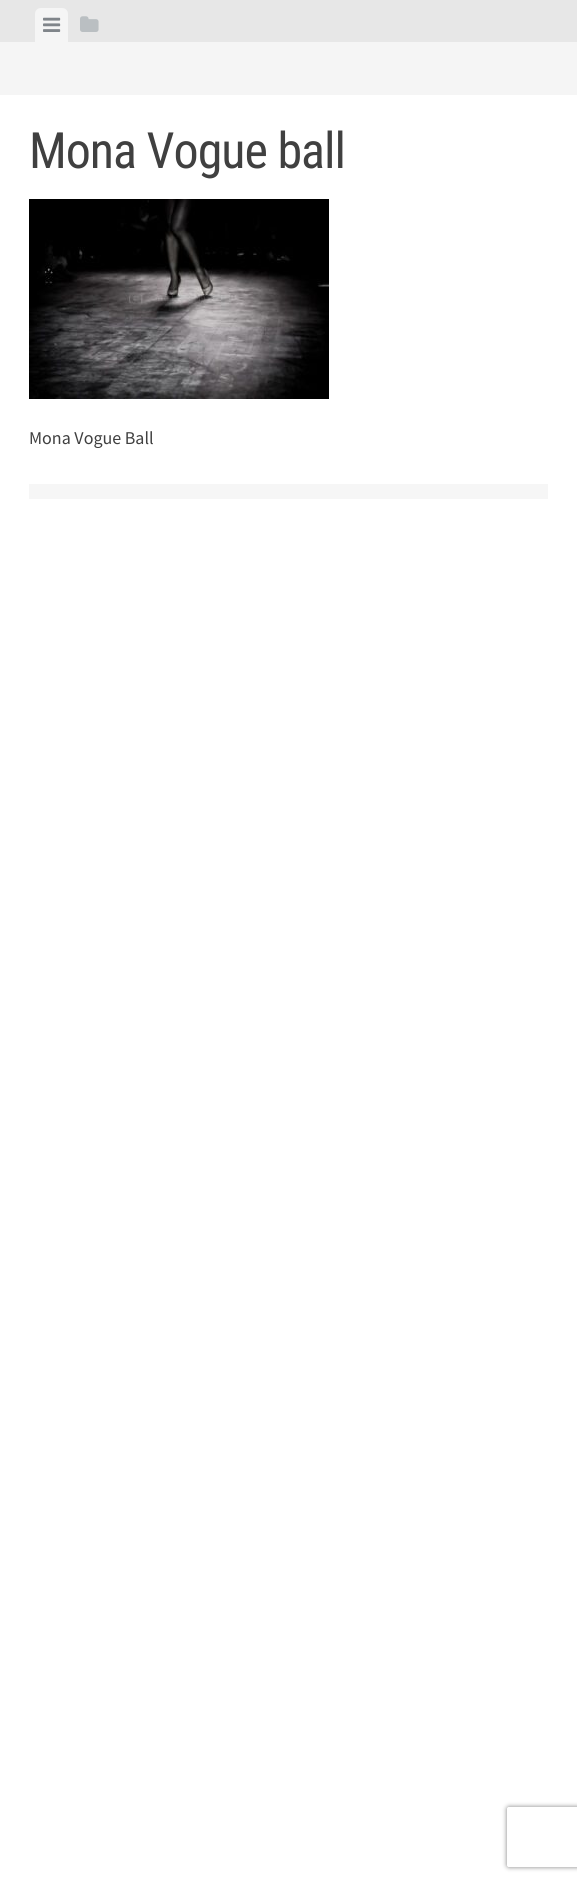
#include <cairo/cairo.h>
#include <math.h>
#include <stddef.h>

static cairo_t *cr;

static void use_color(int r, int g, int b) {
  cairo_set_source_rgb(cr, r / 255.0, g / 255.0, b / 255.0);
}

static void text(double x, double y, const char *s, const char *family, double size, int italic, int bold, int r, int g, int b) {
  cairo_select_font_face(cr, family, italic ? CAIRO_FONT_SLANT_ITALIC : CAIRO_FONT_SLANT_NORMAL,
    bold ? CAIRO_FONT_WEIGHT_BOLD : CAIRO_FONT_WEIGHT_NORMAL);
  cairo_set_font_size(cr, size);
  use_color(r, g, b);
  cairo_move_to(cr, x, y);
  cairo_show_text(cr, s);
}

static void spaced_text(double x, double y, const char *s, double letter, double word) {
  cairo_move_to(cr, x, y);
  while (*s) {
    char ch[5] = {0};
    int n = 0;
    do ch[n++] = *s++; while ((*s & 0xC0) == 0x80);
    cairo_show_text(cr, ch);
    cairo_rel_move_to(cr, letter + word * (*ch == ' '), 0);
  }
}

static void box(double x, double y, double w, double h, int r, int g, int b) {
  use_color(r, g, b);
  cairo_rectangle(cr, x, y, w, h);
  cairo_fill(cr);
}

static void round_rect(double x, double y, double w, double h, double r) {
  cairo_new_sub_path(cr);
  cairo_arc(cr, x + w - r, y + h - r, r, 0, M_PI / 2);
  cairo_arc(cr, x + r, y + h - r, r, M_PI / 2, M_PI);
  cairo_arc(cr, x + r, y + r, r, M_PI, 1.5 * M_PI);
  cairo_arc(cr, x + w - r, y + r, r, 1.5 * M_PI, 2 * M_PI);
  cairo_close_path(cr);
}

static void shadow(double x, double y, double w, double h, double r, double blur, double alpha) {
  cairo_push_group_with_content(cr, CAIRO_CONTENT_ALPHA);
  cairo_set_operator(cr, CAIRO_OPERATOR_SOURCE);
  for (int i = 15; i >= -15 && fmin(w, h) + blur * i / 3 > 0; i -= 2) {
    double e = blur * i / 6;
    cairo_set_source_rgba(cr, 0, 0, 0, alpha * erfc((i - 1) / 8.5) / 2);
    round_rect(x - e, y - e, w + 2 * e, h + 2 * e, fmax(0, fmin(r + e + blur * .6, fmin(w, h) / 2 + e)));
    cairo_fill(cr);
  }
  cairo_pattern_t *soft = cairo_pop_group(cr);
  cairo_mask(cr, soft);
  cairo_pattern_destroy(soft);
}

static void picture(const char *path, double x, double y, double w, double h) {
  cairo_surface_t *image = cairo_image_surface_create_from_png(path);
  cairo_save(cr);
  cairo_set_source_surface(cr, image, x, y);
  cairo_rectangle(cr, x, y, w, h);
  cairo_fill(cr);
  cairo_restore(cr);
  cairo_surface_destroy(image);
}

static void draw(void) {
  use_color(255, 255, 255);
  cairo_paint(cr);
  box(0, 42, 577, 53, 245, 245, 245);
  box(0, 0, 577, 42, 231, 231, 231);
  use_color(245, 245, 245);
  cairo_new_path(cr);
  cairo_move_to(cr, 41, 8);
  cairo_line_to(cr, 62, 8);
  cairo_curve_to(cr, 65.5, 8, 68, 10.5, 68, 14);
  cairo_line_to(cr, 68, 42);
  cairo_line_to(cr, 35, 42);
  cairo_line_to(cr, 35, 14);
  cairo_curve_to(cr, 35, 10.5, 37.5, 8, 41, 8);
  cairo_close_path(cr);
  cairo_fill(cr);
  picture("img_01.png", 43, 17, 18, 15);
  picture("img_02.png", 80, 16, 19, 16);
  box(29, 484, 519, 15, 246, 246, 246);
  picture("img_03.png", 29, 199, 300, 200);
  cairo_save(cr);
  cairo_set_fill_rule(cr, CAIRO_FILL_RULE_EVEN_ODD);
  cairo_new_path(cr);
  cairo_move_to(cr, 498, 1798);
  cairo_line_to(cr, 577, 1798);
  cairo_line_to(cr, 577, 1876);
  cairo_line_to(cr, 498, 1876);
  cairo_close_path(cr);
  cairo_move_to(cr, 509, 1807);
  cairo_line_to(cr, 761, 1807);
  cairo_curve_to(cr, 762, 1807, 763, 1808, 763, 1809);
  cairo_line_to(cr, 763, 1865);
  cairo_curve_to(cr, 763, 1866, 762, 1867, 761, 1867);
  cairo_line_to(cr, 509, 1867);
  cairo_curve_to(cr, 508, 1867, 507, 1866, 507, 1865);
  cairo_line_to(cr, 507, 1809);
  cairo_curve_to(cr, 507, 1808, 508, 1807, 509, 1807);
  cairo_close_path(cr);
  cairo_clip(cr);
  use_color(128, 128, 128);
  shadow(507, 1807, 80, 60, 2, 2.5, 1);
  cairo_restore(cr);
  cairo_select_font_face(cr, "Roboto Condensed", CAIRO_FONT_SLANT_NORMAL, CAIRO_FONT_WEIGHT_NORMAL);
  cairo_set_font_size(cr, 50);
  use_color(64, 64, 64);
  spaced_text(29, 168, "Mona Vogue ball", -1, 0);
  text(29, 444, "Mona Vogue Ball", "Source Sans Pro", 18, 0, 0, 64, 64, 64);
}

int main(void) {
  cairo_surface_t *surface = cairo_image_surface_create(CAIRO_FORMAT_RGB24, 577, 1881);
  cr = cairo_create(surface);
  cairo_font_options_t *options = cairo_font_options_create();
  cairo_font_options_set_hint_metrics(options, CAIRO_HINT_METRICS_OFF);
  cairo_font_options_set_hint_style(options, CAIRO_HINT_STYLE_NONE);
  cairo_set_font_options(cr, options);
  cairo_set_miter_limit(cr, 4);
  draw();
  cairo_surface_write_to_png(surface, "out.png");
  cairo_font_options_destroy(options);
  cairo_destroy(cr);
  cairo_surface_destroy(surface);
  return 0;
}
